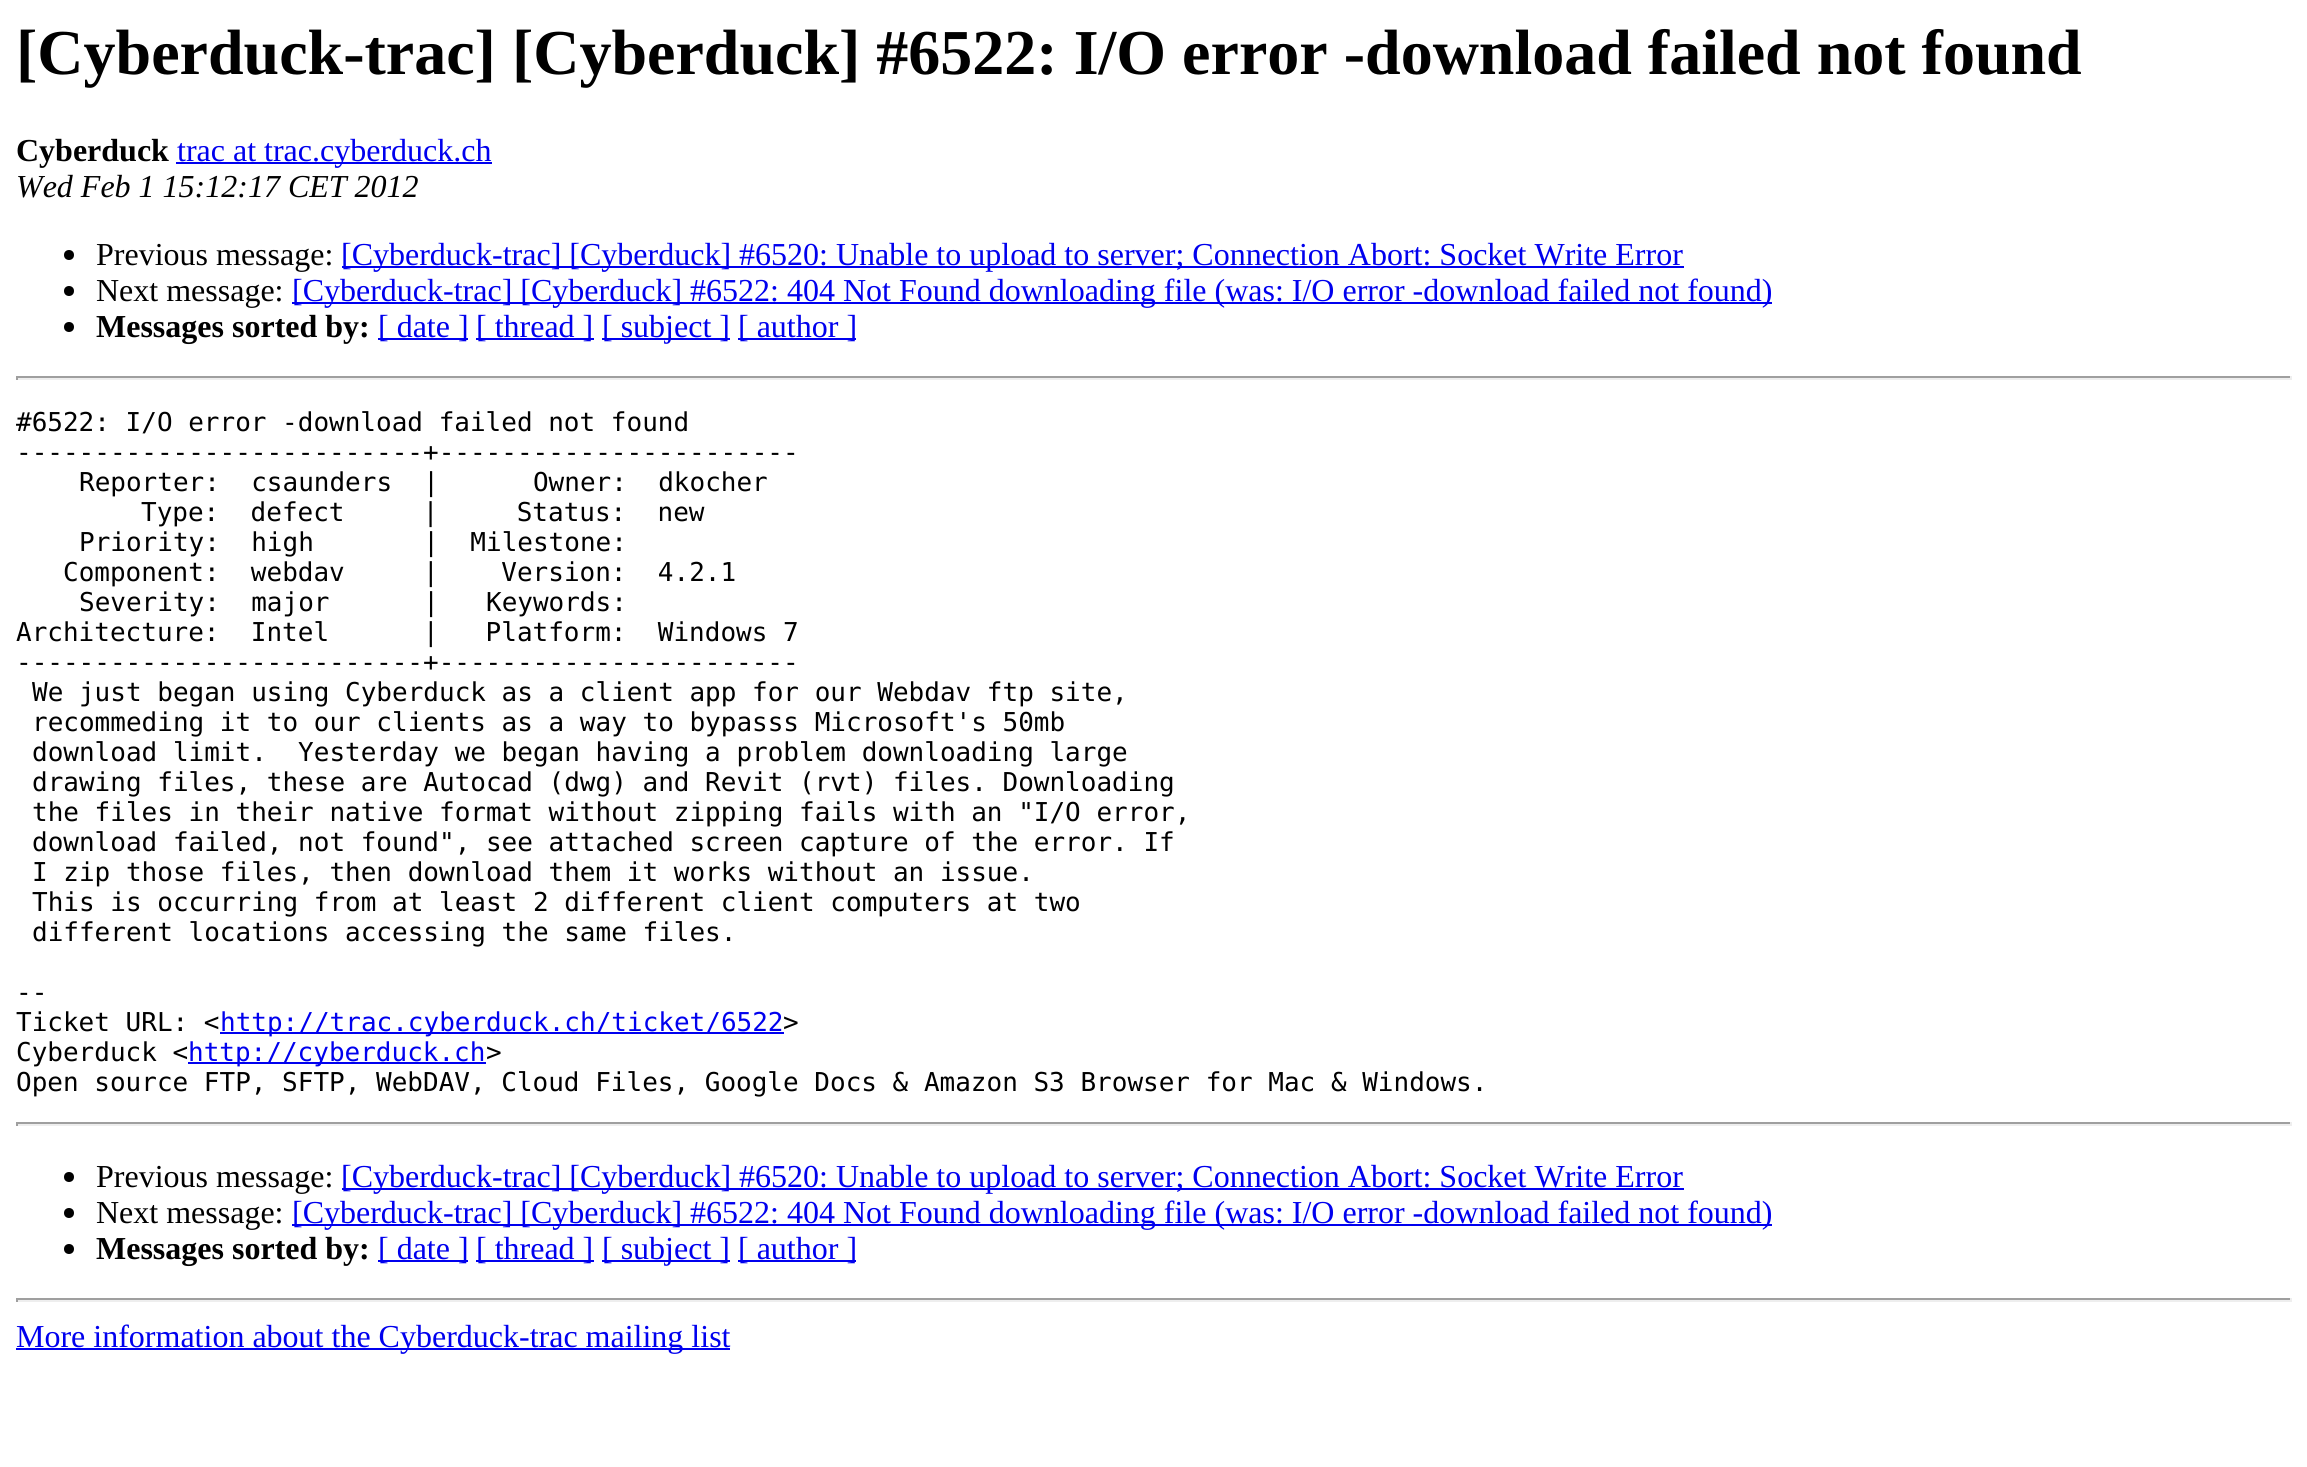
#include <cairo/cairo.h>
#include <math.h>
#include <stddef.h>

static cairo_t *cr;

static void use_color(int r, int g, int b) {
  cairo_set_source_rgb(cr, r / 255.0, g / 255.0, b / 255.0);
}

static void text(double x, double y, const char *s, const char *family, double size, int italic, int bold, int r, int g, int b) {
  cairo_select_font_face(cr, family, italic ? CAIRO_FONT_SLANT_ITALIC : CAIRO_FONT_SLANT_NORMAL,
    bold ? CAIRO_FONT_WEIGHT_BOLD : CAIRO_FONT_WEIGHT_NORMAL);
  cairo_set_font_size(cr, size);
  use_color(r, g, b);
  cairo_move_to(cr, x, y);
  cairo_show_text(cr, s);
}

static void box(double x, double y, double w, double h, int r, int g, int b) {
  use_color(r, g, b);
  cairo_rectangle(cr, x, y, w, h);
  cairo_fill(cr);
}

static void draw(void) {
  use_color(255, 255, 255);
  cairo_paint(cr);
  box(176, 162, 316, 2, 0, 0, 238);
  use_color(0, 0, 0);
  cairo_arc(cr, 69, 255, 5, 0, 2 * M_PI);
  cairo_fill(cr);
  box(342, 266, 1342, 2, 0, 0, 238);
  use_color(0, 0, 0);
  cairo_arc(cr, 69, 291, 5, 0, 2 * M_PI);
  cairo_fill(cr);
  box(292, 302, 1480, 2, 0, 0, 238);
  use_color(0, 0, 0);
  cairo_arc(cr, 69, 327, 5, 0, 2 * M_PI);
  cairo_fill(cr);
  box(378, 338, 90, 2, 0, 0, 238);
  box(476, 338, 118, 2, 0, 0, 238);
  box(602, 338, 128, 2, 0, 0, 238);
  box(738, 338, 118, 2, 0, 0, 238);
  box(16, 376, 2276, 2, 159, 159, 159);
  box(2290, 376, 2, 4, 238, 238, 238);
  box(16, 378, 2276, 2, 238, 238, 238);
  box(16, 376, 2, 4, 159, 159, 159);
  box(220, 1032, 564, 2, 0, 0, 238);
  box(188, 1062, 298, 2, 0, 0, 238);
  box(16, 1122, 2276, 2, 159, 159, 159);
  box(2290, 1122, 2, 4, 238, 238, 238);
  box(16, 1124, 2276, 2, 238, 238, 238);
  box(16, 1122, 2, 4, 159, 159, 159);
  use_color(0, 0, 0);
  cairo_arc(cr, 69, 1177, 5, 0, 2 * M_PI);
  cairo_fill(cr);
  box(342, 1188, 1342, 2, 0, 0, 238);
  use_color(0, 0, 0);
  cairo_arc(cr, 69, 1213, 5, 0, 2 * M_PI);
  cairo_fill(cr);
  box(292, 1224, 1480, 2, 0, 0, 238);
  use_color(0, 0, 0);
  cairo_arc(cr, 69, 1249, 5, 0, 2 * M_PI);
  cairo_fill(cr);
  box(378, 1260, 90, 2, 0, 0, 238);
  box(476, 1260, 118, 2, 0, 0, 238);
  box(602, 1260, 128, 2, 0, 0, 238);
  box(738, 1260, 118, 2, 0, 0, 238);
  box(16, 1298, 2276, 2, 159, 159, 159);
  box(2290, 1298, 2, 4, 238, 238, 238);
  box(16, 1300, 2276, 2, 238, 238, 238);
  box(16, 1298, 2, 4, 159, 159, 159);
  box(16, 1348, 714, 2, 0, 0, 238);
  text(16, 74, "[Cyberduck-trac] [Cyberduck] #6522: I/O error -download failed not found", "Liberation Serif", 64, 0, 1, 0, 0, 0);
  text(16, 161, "Cyberduck", "Liberation Serif", 32, 0, 1, 0, 0, 0);
  text(177, 161, "trac at trac.cyberduck.ch", "Liberation Serif", 32, 0, 0, 0, 0, 238);
  text(16, 197, "Wed Feb 1 15:12:17 CET 2012", "Liberation Serif", 32, 1, 0, 0, 0, 0);
  text(96, 265, "Previous message:", "Liberation Serif", 32, 0, 0, 0, 0, 0);
  text(341, 265, "[Cyberduck-trac] [Cyberduck] #6520: Unable to upload to server; Connection Abort: Socket Write Error", "Liberation Serif", 32, 0, 0, 0, 0, 238);
  text(96, 301, "Next message:", "Liberation Serif", 32, 0, 0, 0, 0, 0);
  text(292, 301, "[Cyberduck-trac] [Cyberduck] #6522: 404 Not Found downloading file (was: I/O error -download failed not found)", "Liberation Serif", 32, 0, 0, 0, 0, 238);
  text(96, 337, "Messages sorted by:", "Liberation Serif", 32, 0, 1, 0, 0, 0);
  text(378, 337, "[ date ]", "Liberation Serif", 32, 0, 0, 0, 0, 238);
  text(476, 337, "[ thread ]", "Liberation Serif", 32, 0, 0, 0, 0, 238);
  text(602, 337, "[ subject ]", "Liberation Serif", 32, 0, 0, 0, 0, 238);
  text(738, 337, "[ author ]", "Liberation Serif", 32, 0, 0, 0, 0, 238);
  text(16, 431, "#6522: I/O error -download failed not found", "DejaVu Sans Mono", 26, 0, 0, 0, 0, 0);
  text(16, 461, "--------------------------+-----------------------", "DejaVu Sans Mono", 26, 0, 0, 0, 0, 0);
  text(79, 491, "Reporter:  csaunders  |      Owner:  dkocher", "DejaVu Sans Mono", 26, 0, 0, 0, 0, 0);
  text(141, 521, "Type:  defect     |     Status:  new", "DejaVu Sans Mono", 26, 0, 0, 0, 0, 0);
  text(79, 551, "Priority:  high       |  Milestone:", "DejaVu Sans Mono", 26, 0, 0, 0, 0, 0);
  text(63, 581, "Component:  webdav     |    Version:  4.2.1", "DejaVu Sans Mono", 26, 0, 0, 0, 0, 0);
  text(79, 611, "Severity:  major      |   Keywords:", "DejaVu Sans Mono", 26, 0, 0, 0, 0, 0);
  text(16, 641, "Architecture:  Intel      |   Platform:  Windows 7", "DejaVu Sans Mono", 26, 0, 0, 0, 0, 0);
  text(16, 671, "--------------------------+-----------------------", "DejaVu Sans Mono", 26, 0, 0, 0, 0, 0);
  text(32, 701, "We just began using Cyberduck as a client app for our Webdav ftp site,", "DejaVu Sans Mono", 26, 0, 0, 0, 0, 0);
  text(32, 731, "recommeding it to our clients as a way to bypasss Microsoft's 50mb", "DejaVu Sans Mono", 26, 0, 0, 0, 0, 0);
  text(32, 761, "download limit.  Yesterday we began having a problem downloading large", "DejaVu Sans Mono", 26, 0, 0, 0, 0, 0);
  text(32, 791, "drawing files, these are Autocad (dwg) and Revit (rvt) files. Downloading", "DejaVu Sans Mono", 26, 0, 0, 0, 0, 0);
  text(32, 821, "the files in their native format without zipping fails with an \"I/O error,", "DejaVu Sans Mono", 26, 0, 0, 0, 0, 0);
  text(32, 851, "download failed, not found\", see attached screen capture of the error. If", "DejaVu Sans Mono", 26, 0, 0, 0, 0, 0);
  text(32, 881, "I zip those files, then download them it works without an issue.", "DejaVu Sans Mono", 26, 0, 0, 0, 0, 0);
  text(32, 911, "This is occurring from at least 2 different client computers at two", "DejaVu Sans Mono", 26, 0, 0, 0, 0, 0);
  text(32, 941, "different locations accessing the same files.", "DejaVu Sans Mono", 26, 0, 0, 0, 0, 0);
  text(16, 1001, "--", "DejaVu Sans Mono", 26, 0, 0, 0, 0, 0);
  text(16, 1031, "Ticket URL: <", "DejaVu Sans Mono", 26, 0, 0, 0, 0, 0);
  text(220, 1031, "http://trac.cyberduck.ch/ticket/6522", "DejaVu Sans Mono", 26, 0, 0, 0, 0, 238);
  text(783, 1031, ">", "DejaVu Sans Mono", 26, 0, 0, 0, 0, 0);
  text(16, 1061, "Cyberduck <", "DejaVu Sans Mono", 26, 0, 0, 0, 0, 0);
  text(188, 1061, "http://cyberduck.ch", "DejaVu Sans Mono", 26, 0, 0, 0, 0, 238);
  text(486, 1061, ">", "DejaVu Sans Mono", 26, 0, 0, 0, 0, 0);
  text(16, 1091, "Open source FTP, SFTP, WebDAV, Cloud Files, Google Docs & Amazon S3 Browser for Mac & Windows.", "DejaVu Sans Mono", 26, 0, 0, 0, 0, 0);
  text(96, 1187, "Previous message:", "Liberation Serif", 32, 0, 0, 0, 0, 0);
  text(341, 1187, "[Cyberduck-trac] [Cyberduck] #6520: Unable to upload to server; Connection Abort: Socket Write Error", "Liberation Serif", 32, 0, 0, 0, 0, 238);
  text(96, 1223, "Next message:", "Liberation Serif", 32, 0, 0, 0, 0, 0);
  text(292, 1223, "[Cyberduck-trac] [Cyberduck] #6522: 404 Not Found downloading file (was: I/O error -download failed not found)", "Liberation Serif", 32, 0, 0, 0, 0, 238);
  text(96, 1259, "Messages sorted by:", "Liberation Serif", 32, 0, 1, 0, 0, 0);
  text(378, 1259, "[ date ]", "Liberation Serif", 32, 0, 0, 0, 0, 238);
  text(476, 1259, "[ thread ]", "Liberation Serif", 32, 0, 0, 0, 0, 238);
  text(602, 1259, "[ subject ]", "Liberation Serif", 32, 0, 0, 0, 0, 238);
  text(738, 1259, "[ author ]", "Liberation Serif", 32, 0, 0, 0, 0, 238);
  text(16, 1347, "More information about the Cyberduck-trac mailing list", "Liberation Serif", 32, 0, 0, 0, 0, 238);
}

int main(void) {
  cairo_surface_t *surface = cairo_image_surface_create(CAIRO_FORMAT_RGB24, 2307, 1467);
  cr = cairo_create(surface);
  cairo_font_options_t *options = cairo_font_options_create();
  cairo_font_options_set_hint_metrics(options, CAIRO_HINT_METRICS_OFF);
  cairo_font_options_set_hint_style(options, CAIRO_HINT_STYLE_NONE);
  cairo_set_font_options(cr, options);
  cairo_set_miter_limit(cr, 4);
  draw();
  cairo_surface_write_to_png(surface, "out.png");
  cairo_font_options_destroy(options);
  cairo_destroy(cr);
  cairo_surface_destroy(surface);
  return 0;
}
